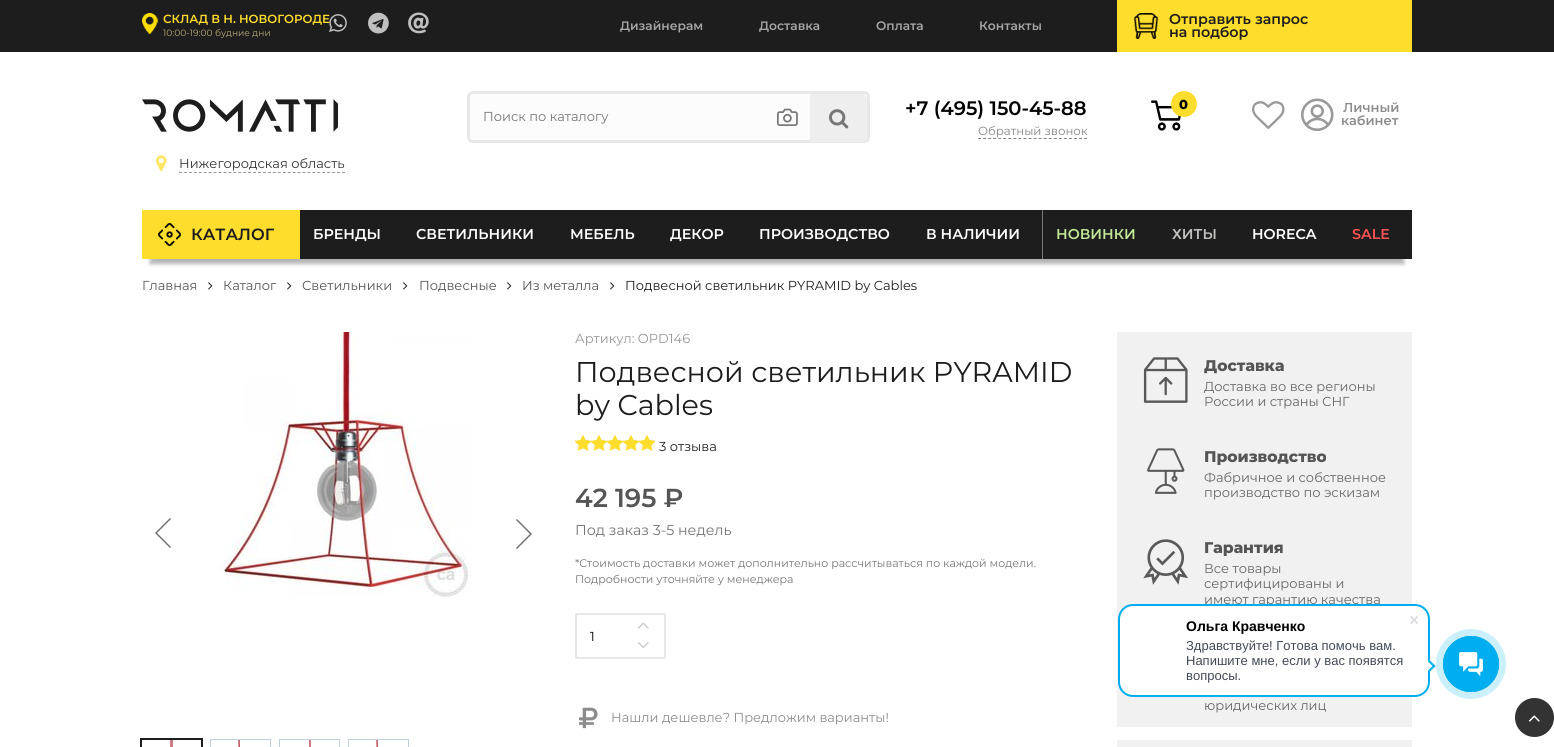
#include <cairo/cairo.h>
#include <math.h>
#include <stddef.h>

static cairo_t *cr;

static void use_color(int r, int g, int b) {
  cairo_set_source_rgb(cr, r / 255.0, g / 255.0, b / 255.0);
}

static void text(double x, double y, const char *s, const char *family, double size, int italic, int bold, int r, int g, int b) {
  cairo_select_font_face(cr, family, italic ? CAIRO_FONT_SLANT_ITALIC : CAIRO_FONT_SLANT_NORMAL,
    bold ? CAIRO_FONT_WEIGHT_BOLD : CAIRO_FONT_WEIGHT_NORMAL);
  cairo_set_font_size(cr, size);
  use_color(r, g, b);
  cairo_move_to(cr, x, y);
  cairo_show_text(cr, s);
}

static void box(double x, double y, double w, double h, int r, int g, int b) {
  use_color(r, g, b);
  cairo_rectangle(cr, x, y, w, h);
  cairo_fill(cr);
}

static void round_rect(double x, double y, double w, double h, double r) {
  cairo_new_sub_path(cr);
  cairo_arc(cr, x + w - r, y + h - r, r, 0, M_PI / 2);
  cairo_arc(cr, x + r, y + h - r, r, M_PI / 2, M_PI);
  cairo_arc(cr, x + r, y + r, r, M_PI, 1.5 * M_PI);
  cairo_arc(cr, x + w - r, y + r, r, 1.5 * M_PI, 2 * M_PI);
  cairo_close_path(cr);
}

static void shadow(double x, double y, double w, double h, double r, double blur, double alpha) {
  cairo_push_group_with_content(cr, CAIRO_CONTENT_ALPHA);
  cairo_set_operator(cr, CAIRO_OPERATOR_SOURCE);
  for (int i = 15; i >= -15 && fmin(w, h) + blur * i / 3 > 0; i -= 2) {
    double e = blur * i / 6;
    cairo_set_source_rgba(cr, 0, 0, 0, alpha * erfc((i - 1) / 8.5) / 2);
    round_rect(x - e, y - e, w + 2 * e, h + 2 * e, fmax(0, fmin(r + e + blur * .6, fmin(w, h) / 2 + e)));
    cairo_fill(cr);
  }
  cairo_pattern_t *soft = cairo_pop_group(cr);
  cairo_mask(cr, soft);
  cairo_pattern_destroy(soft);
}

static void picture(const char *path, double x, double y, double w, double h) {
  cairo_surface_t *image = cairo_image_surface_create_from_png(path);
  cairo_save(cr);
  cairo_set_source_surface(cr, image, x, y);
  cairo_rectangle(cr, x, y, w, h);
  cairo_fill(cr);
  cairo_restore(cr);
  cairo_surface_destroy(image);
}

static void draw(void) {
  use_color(255, 255, 255);
  cairo_paint(cr);
  box(0, 0, 1554, 52, 29, 29, 30);
  picture("img_01.png", 142, 13, 17, 21);
  picture("img_02.png", 329, 14, 18, 18);
  picture("img_03.png", 368, 12, 21, 22);
  picture("img_04.png", 408, 12, 21, 22);
  box(1117, 0, 295, 52, 255, 221, 45);
  picture("img_05.png", 1133, 13, 26, 26);
  use_color(252, 252, 252);
  round_rect(468.5, 92.5, 400, 49, 4.5);
  cairo_fill_preserve(cr);
  use_color(232, 232, 232);
  cairo_set_line_width(cr, 3);
  cairo_stroke(cr);
  picture("img_06.png", 777, 108, 21, 18);
  use_color(238, 238, 238);
  cairo_new_path(cr);
  cairo_move_to(cr, 810, 94);
  cairo_line_to(cr, 861, 94);
  cairo_curve_to(cr, 864.5, 94, 867, 96.5, 867, 100);
  cairo_line_to(cr, 867, 136);
  cairo_curve_to(cr, 867, 139.5, 864.5, 142, 861, 142);
  cairo_line_to(cr, 810, 142);
  cairo_close_path(cr);
  cairo_fill(cr);
  picture("img_07.png", 829, 109, 20, 20);
  cairo_new_path(cr);
  cairo_move_to(cr, 978, 138.5);
  cairo_line_to(cr, 1087, 138.5);
  use_color(133, 133, 133);
  cairo_set_line_width(cr, 1);
  cairo_set_dash(cr, (double[]){3, 2.05}, 2, 0);
  cairo_stroke(cr);
  picture("img_08.png", 1151, 100, 30, 31);
  use_color(255, 221, 45);
  cairo_arc(cr, 1184, 104, 13, 0, 2 * M_PI);
  cairo_fill(cr);
  picture("img_09.png", 1252, 101, 33, 28);
  picture("img_10.png", 1301, 98, 33, 33);
  picture("img_11.png", 142, 99, 196, 33);
  picture("img_12.png", 156, 155, 11, 16);
  cairo_new_path(cr);
  cairo_move_to(cr, 179, 172.5);
  cairo_line_to(cr, 345, 172.5);
  use_color(153, 153, 153);
  cairo_set_dash(cr, (double[]){3, 1.94}, 2, 0);
  cairo_stroke(cr);
  use_color(0, 0, 0);
  shadow(150, 231, 1254, 33, 0, 2, 0.3);
  box(300, 210, 1112, 49, 29, 29, 30);
  box(142, 210, 158, 49, 255, 221, 45);
  picture("img_13.png", 158, 223, 23, 23);
  box(1042, 210, 1, 49, 119, 119, 120);
  picture("img_14.png", 208, 282, 5, 8);
  picture("img_14.png", 287, 282, 5, 8);
  picture("img_14.png", 403, 282, 5, 8);
  picture("img_14.png", 507, 282, 5, 8);
  picture("img_14.png", 610, 282, 5, 8);
  use_color(110, 110, 110);
  cairo_set_fill_rule(cr, CAIRO_FILL_RULE_EVEN_ODD);
  cairo_new_path(cr);
  cairo_move_to(cr, 171, 547);
  cairo_line_to(cr, 157, 533);
  cairo_line_to(cr, 171, 519);
  cairo_line_to(cr, 170, 518);
  cairo_line_to(cr, 155, 533);
  cairo_line_to(cr, 170, 548);
  cairo_close_path(cr);
  cairo_fill(cr);
  picture("img_15.png", 218, 332, 253, 265);
  cairo_new_path(cr);
  cairo_move_to(cr, 516, 520);
  cairo_line_to(cr, 530, 534);
  cairo_line_to(cr, 516, 548);
  cairo_line_to(cr, 517, 549);
  cairo_line_to(cr, 532, 534);
  cairo_line_to(cr, 517, 519);
  cairo_close_path(cr);
  cairo_fill(cr);
  cairo_rectangle(cr, 141, 739, 61, 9);
  use_color(29, 29, 30);
  cairo_set_line_width(cr, 2);
  cairo_set_dash(cr, NULL, 0, 0);
  cairo_stroke(cr);
  box(170, 740, 3, 7, 204, 124, 130);
  cairo_rectangle(cr, 210.5, 739.5, 60, 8);
  use_color(192, 207, 218);
  cairo_set_line_width(cr, 1);
  cairo_stroke(cr);
  picture("img_16.png", 237, 740, 3, 7);
  cairo_rectangle(cr, 279.5, 739.5, 60, 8);
  cairo_stroke(cr);
  picture("img_17.png", 309, 740, 2, 7);
  cairo_rectangle(cr, 348.5, 739.5, 60, 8);
  cairo_stroke(cr);
  picture("img_18.png", 375, 740, 3, 7);
  picture("img_19.png", 575, 435, 80, 16);
  picture("img_20.png", 575, 435, 80, 16);
  round_rect(576, 614, 89, 44, 1);
  use_color(232, 232, 232);
  cairo_set_line_width(cr, 2);
  cairo_stroke(cr);
  picture("img_21.png", 638, 622, 11, 7);
  picture("img_22.png", 638, 642, 11, 7);
  picture("img_23.png", 579, 707, 19, 22);
  box(1117, 332, 295, 395, 241, 241, 241);
  picture("img_24.png", 1143, 357, 45, 46);
  picture("img_25.png", 1147, 448, 38, 46);
  picture("img_26.png", 1143, 539, 45, 46);
  box(1117, 740, 295, 7, 241, 241, 241);
  use_color(204, 239, 252);
  cairo_arc(cr, 1471, 664, 35, 0, 2 * M_PI);
  cairo_fill(cr);
  cairo_arc(cr, 1471, 664, 27.6, 0, 2 * M_PI);
  use_color(0, 174, 239);
  cairo_set_line_width(cr, 0.8);
  cairo_stroke(cr);
  cairo_arc(cr, 1471, 664, 28, 0, 2 * M_PI);
  cairo_fill(cr);
  picture("img_28.png", 1459, 652, 24, 24);
  use_color(51, 51, 51);
  cairo_arc(cr, 1534.5, 717.5, 19.5, 0, 2 * M_PI);
  cairo_fill(cr);
  picture("img_29.png", 1528, 715, 12, 7);
  text(163, 23, "СКЛАД В Н. НОВОГОРОДЕ", "Montserrat SemiBold", 11.75, 0, 0, 255, 221, 45);
  text(163, 36, "10:00-19:00 будние дни", "Montserrat", 9.1, 0, 0, 183, 172, 117);
  text(620, 30, "Дизайнерам", "Montserrat SemiBold", 12.25, 0, 0, 166, 166, 166);
  text(759, 30, "Доставка", "Montserrat SemiBold", 12.25, 0, 0, 166, 166, 166);
  text(876, 30, "Оплата", "Montserrat SemiBold", 12.25, 0, 0, 166, 166, 166);
  text(979, 30, "Контакты", "Montserrat SemiBold", 12.25, 0, 0, 166, 166, 166);
  text(1169, 24, "Отправить запрос", "Montserrat SemiBold", 14.25, 0, 0, 29, 29, 30);
  text(1169, 37, "на подбор", "Montserrat SemiBold", 14.25, 0, 0, 29, 29, 30);
  text(483, 121, "Поиск по каталогу", "Montserrat", 13, 0, 0, 117, 117, 117);
  text(905, 115, "+7 (495) 150-45-88", "Montserrat SemiBold", 19.5, 0, 0, 0, 0, 0);
  text(978, 135, "Обратный звонок", "Montserrat", 11.75, 0, 0, 133, 133, 133);
  text(1179, 109, "0", "Montserrat ExtraBold", 13, 0, 0, 0, 0, 0);
  text(1343, 112, "Личный", "Montserrat SemiBold", 13, 0, 0, 140, 140, 140);
  text(1341, 125, "кабинет", "Montserrat SemiBold", 13, 0, 0, 140, 140, 140);
  text(179, 168, "Нижегородская область", "Montserrat", 13, 0, 0, 51, 51, 51);
  text(191, 240, "КАТАЛОГ", "Montserrat SemiBold", 16.25, 0, 0, 29, 29, 30);
  text(313, 239, "БРЕНДЫ", "Montserrat SemiBold", 14.25, 0, 0, 255, 255, 255);
  text(416, 239, "СВЕТИЛЬНИКИ", "Montserrat SemiBold", 14.25, 0, 0, 255, 255, 255);
  text(570, 239, "МЕБЕЛЬ", "Montserrat SemiBold", 14.25, 0, 0, 255, 255, 255);
  text(670, 239, "ДЕКОР", "Montserrat SemiBold", 14.25, 0, 0, 255, 255, 255);
  text(759, 239, "ПРОИЗВОДСТВО", "Montserrat SemiBold", 14.25, 0, 0, 255, 255, 255);
  text(926, 239, "В НАЛИЧИИ", "Montserrat SemiBold", 14.25, 0, 0, 255, 255, 255);
  text(1056, 239, "НОВИНКИ", "Montserrat SemiBold", 14.25, 0, 0, 193, 230, 150);
  text(1172, 239, "ХИТЫ", "Montserrat SemiBold", 14.25, 0, 0, 194, 193, 190);
  text(1252, 239, "HORECA", "Montserrat SemiBold", 14.25, 0, 0, 255, 255, 255);
  text(1352, 239, "SALE", "Montserrat SemiBold", 14.25, 0, 0, 255, 83, 83);
  text(142, 290, "Главная", "Montserrat", 13, 0, 0, 85, 85, 85);
  text(223, 290, "Каталог", "Montserrat", 13, 0, 0, 85, 85, 85);
  text(302, 290, "Светильники", "Montserrat", 13, 0, 0, 85, 85, 85);
  text(419, 290, "Подвесные", "Montserrat", 13, 0, 0, 85, 85, 85);
  text(522, 290, "Из металла", "Montserrat", 13, 0, 0, 85, 85, 85);
  text(625, 290, "Подвесной светильник PYRAMID by Cables", "Montserrat", 13, 0, 0, 29, 29, 30);
  text(575, 343, "Артикул: OPD146", "Montserrat", 13, 0, 0, 151, 151, 151);
  text(575, 382, "Подвесной светильник PYRAMID", "Montserrat", 28.6, 0, 0, 29, 29, 30);
  text(575, 415, "by Cables", "Montserrat", 28.6, 0, 0, 29, 29, 30);
  text(659, 451, "3 отзыва", "Montserrat", 13, 0, 0, 29, 29, 30);
  text(575, 507, "42 195 ₽", "Montserrat SemiBold", 26, 0, 0, 85, 85, 85);
  text(575, 535, "Под заказ 3-5 недель", "Montserrat", 14.25, 0, 0, 117, 117, 117);
  text(575, 567, "*Стоимость доставки может дополнительно рассчитываться по каждой модели.", "Montserrat", 11, 0, 0, 117, 117, 117);
  text(575, 583, "Подробности уточняйте у менеджера", "Montserrat", 11, 0, 0, 117, 117, 117);
  text(590, 641, "1", "Montserrat", 13, 0, 0, 0, 0, 0);
  text(611, 722, "Нашли дешевле? Предложим варианты!", "Montserrat", 13, 0, 0, 140, 140, 140);
  text(1204, 371, "Доставка", "Montserrat ExtraBold", 15.5, 0, 0, 85, 85, 85);
  text(1204, 391, "Доставка во все регионы", "Montserrat", 13, 0, 0, 102, 102, 102);
  text(1204, 406, "России и страны СНГ", "Montserrat", 13, 0, 0, 102, 102, 102);
  text(1204, 462, "Производство", "Montserrat ExtraBold", 15.5, 0, 0, 85, 85, 85);
  text(1204, 482, "Фабричное и собственное", "Montserrat", 13, 0, 0, 102, 102, 102);
  text(1204, 497, "производство по эскизам", "Montserrat", 13, 0, 0, 102, 102, 102);
  text(1204, 553, "Гарантия", "Montserrat ExtraBold", 15.5, 0, 0, 85, 85, 85);
  text(1204, 573, "Все товары", "Montserrat", 13, 0, 0, 102, 102, 102);
  text(1204, 588, "сертифицированы и", "Montserrat", 13, 0, 0, 102, 102, 102);
  text(1204, 604, "имеют гарантию качества", "Montserrat", 13, 0, 0, 102, 102, 102);
  text(1204, 710, "юридических лиц", "Montserrat", 13, 0, 0, 102, 102, 102);
  use_color(255, 255, 255);
  round_rect(1119, 605, 310, 91, 14);
  cairo_fill_preserve(cr);
  use_color(0, 174, 239);
  cairo_set_line_width(cr, 2);
  cairo_stroke(cr);
  picture("img_27.png", 1410, 616, 8, 8);
  text(1186, 631, "Ольга Кравченко", "Liberation Sans", 14, 0, 1, 0, 0, 0);
  text(1186, 650, "Здравствуйте! Готова помочь вам.", "Liberation Sans", 13, 0, 0, 66, 73, 86);
  text(1186, 665, "Напишите мне, если у вас появятся", "Liberation Sans", 13, 0, 0, 66, 73, 86);
  text(1186, 680, "вопросы.", "Liberation Sans", 13, 0, 0, 66, 73, 86);
  use_color(255, 255, 255);
  cairo_set_fill_rule(cr, CAIRO_FILL_RULE_WINDING);
  cairo_new_path(cr);
  cairo_move_to(cr, 1424.5, 666);
  cairo_line_to(cr, 1430, 660.5);
  cairo_line_to(cr, 1435.5, 666);
  cairo_line_to(cr, 1430, 671.5);
  cairo_close_path(cr);
  cairo_fill(cr);
  use_color(0, 174, 239);
  cairo_new_path(cr);
  cairo_move_to(cr, 1428.5, 662);
  cairo_line_to(cr, 1430, 660.5);
  cairo_line_to(cr, 1435.5, 666);
  cairo_line_to(cr, 1434, 667.5);
  cairo_close_path(cr);
  cairo_fill(cr);
  cairo_new_path(cr);
  cairo_move_to(cr, 1428.5, 670);
  cairo_line_to(cr, 1434, 664.5);
  cairo_line_to(cr, 1435.5, 666);
  cairo_line_to(cr, 1430, 671.5);
  cairo_close_path(cr);
  cairo_fill(cr);
}

int main(void) {
  cairo_surface_t *surface = cairo_image_surface_create(CAIRO_FORMAT_RGB24, 1554, 747);
  cr = cairo_create(surface);
  cairo_font_options_t *options = cairo_font_options_create();
  cairo_font_options_set_hint_metrics(options, CAIRO_HINT_METRICS_OFF);
  cairo_font_options_set_hint_style(options, CAIRO_HINT_STYLE_NONE);
  cairo_set_font_options(cr, options);
  cairo_set_miter_limit(cr, 4);
  draw();
  cairo_surface_write_to_png(surface, "out.png");
  cairo_font_options_destroy(options);
  cairo_destroy(cr);
  cairo_surface_destroy(surface);
  return 0;
}
